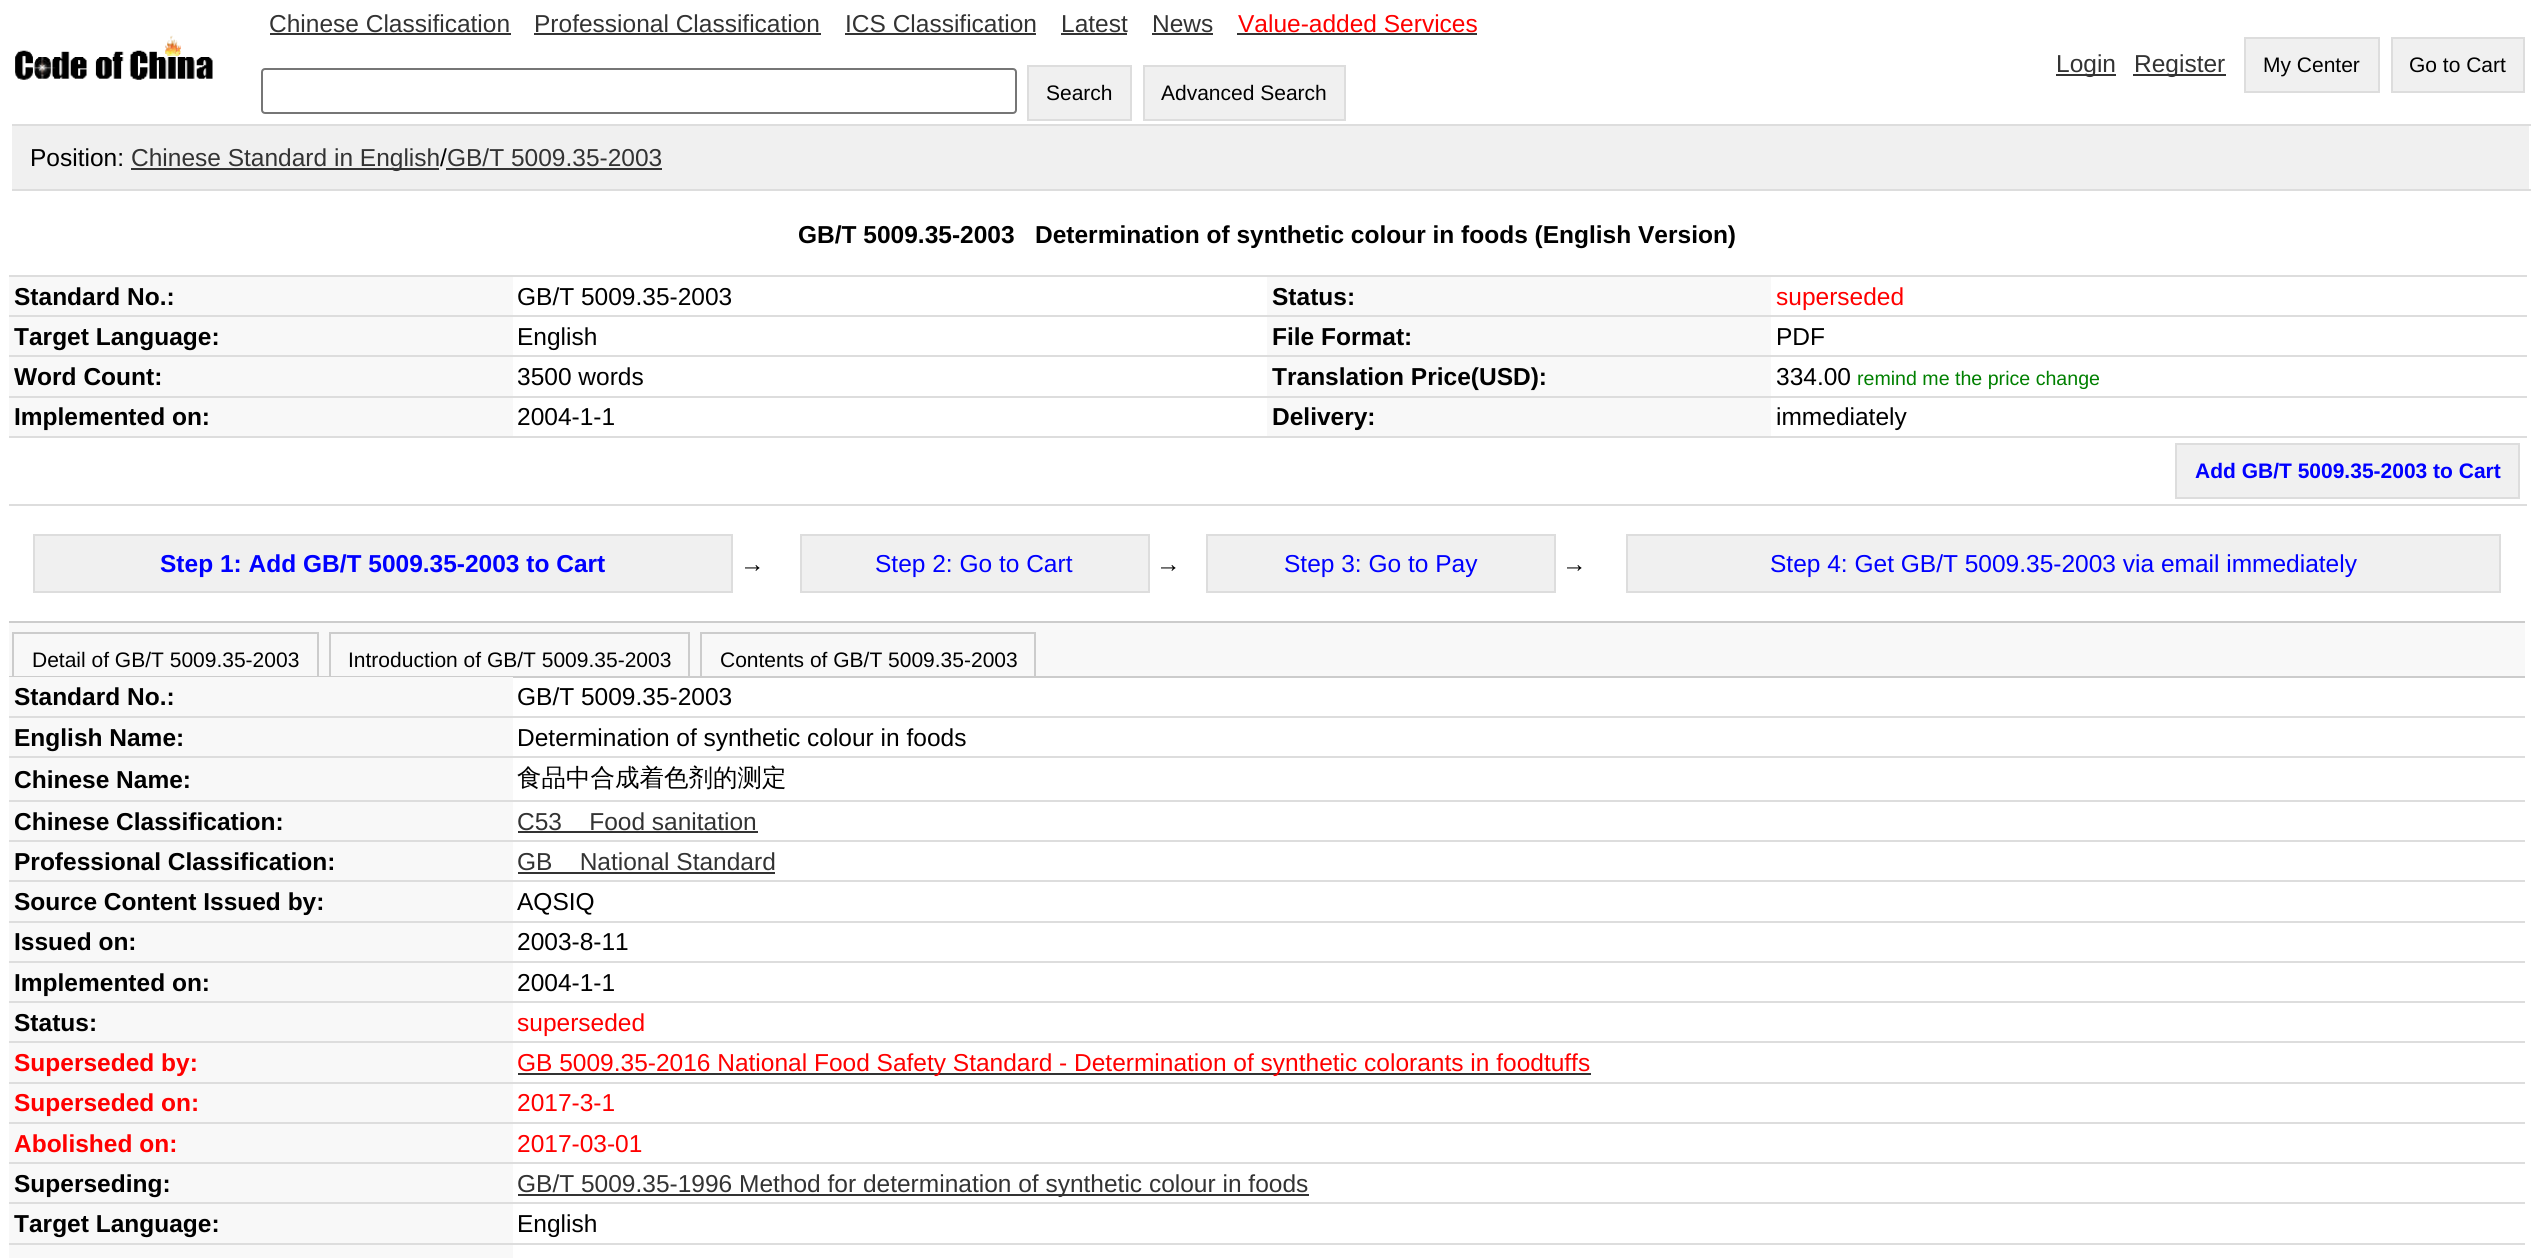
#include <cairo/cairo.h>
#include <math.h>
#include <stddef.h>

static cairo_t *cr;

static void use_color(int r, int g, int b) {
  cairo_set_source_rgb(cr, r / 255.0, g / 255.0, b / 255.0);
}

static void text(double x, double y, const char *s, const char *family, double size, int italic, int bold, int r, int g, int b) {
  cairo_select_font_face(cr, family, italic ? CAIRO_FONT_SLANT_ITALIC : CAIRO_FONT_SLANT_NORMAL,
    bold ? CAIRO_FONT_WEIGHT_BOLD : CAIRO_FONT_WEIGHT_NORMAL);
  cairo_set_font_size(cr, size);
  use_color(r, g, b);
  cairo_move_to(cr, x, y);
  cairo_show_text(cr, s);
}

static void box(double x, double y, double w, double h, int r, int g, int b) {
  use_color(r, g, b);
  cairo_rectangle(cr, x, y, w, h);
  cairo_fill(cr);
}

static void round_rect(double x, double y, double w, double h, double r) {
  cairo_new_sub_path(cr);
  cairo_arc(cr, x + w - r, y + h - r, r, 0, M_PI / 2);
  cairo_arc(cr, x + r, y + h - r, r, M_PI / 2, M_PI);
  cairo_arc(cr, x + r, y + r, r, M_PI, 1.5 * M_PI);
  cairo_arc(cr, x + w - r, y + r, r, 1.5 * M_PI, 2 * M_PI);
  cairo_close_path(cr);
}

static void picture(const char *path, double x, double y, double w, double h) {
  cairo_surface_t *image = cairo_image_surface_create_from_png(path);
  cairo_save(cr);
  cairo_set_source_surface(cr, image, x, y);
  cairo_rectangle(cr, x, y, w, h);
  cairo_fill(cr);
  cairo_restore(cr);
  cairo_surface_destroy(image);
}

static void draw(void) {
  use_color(255, 255, 255);
  cairo_paint(cr);
  picture("img_01.png", 15, 35, 198, 45);
  box(270, 33, 241, 2, 51, 51, 51);
  box(534, 33, 287, 2, 51, 51, 51);
  box(845, 33, 191, 2, 51, 51, 51);
  box(1061, 33, 66, 2, 51, 51, 51);
  box(1152, 33, 61, 2, 51, 51, 51);
  box(1237, 33, 240, 2, 51, 51, 51);
  round_rect(262, 69, 754, 44, 3);
  use_color(118, 118, 118);
  cairo_stroke(cr);
  use_color(240, 240, 240);
  cairo_rectangle(cr, 1028, 66, 103, 54);
  cairo_fill_preserve(cr);
  use_color(221, 221, 221);
  cairo_stroke(cr);
  use_color(240, 240, 240);
  cairo_rectangle(cr, 1144, 66, 201, 54);
  cairo_fill_preserve(cr);
  use_color(221, 221, 221);
  cairo_stroke(cr);
  box(2056, 74, 60, 2, 51, 51, 51);
  box(2133, 74, 93, 2, 51, 51, 51);
  use_color(240, 240, 240);
  cairo_rectangle(cr, 2245, 38, 134, 54);
  cairo_fill_preserve(cr);
  use_color(221, 221, 221);
  cairo_stroke(cr);
  use_color(240, 240, 240);
  cairo_rectangle(cr, 2392, 38, 132, 54);
  cairo_fill_preserve(cr);
  use_color(221, 221, 221);
  cairo_stroke(cr);
  box(12, 126, 2517, 63, 240, 240, 240);
  box(12, 124, 2519, 2, 221, 221, 221);
  box(12, 189, 2519, 2, 221, 221, 221);
  box(131, 168, 308, 2, 51, 51, 51);
  box(446, 168, 216, 2, 51, 51, 51);
  box(9, 275, 2518, 2, 221, 221, 221);
  box(9, 277, 504, 38, 248, 248, 248);
  box(1267, 277, 504, 38, 248, 248, 248);
  box(9, 315, 2518, 2, 221, 221, 221);
  box(9, 317, 504, 38, 248, 248, 248);
  box(1267, 317, 504, 38, 248, 248, 248);
  box(9, 355, 2518, 2, 221, 221, 221);
  box(9, 357, 504, 39, 248, 248, 248);
  box(1267, 357, 504, 39, 248, 248, 248);
  box(9, 396, 2518, 2, 221, 221, 221);
  box(9, 398, 504, 38, 248, 248, 248);
  box(1267, 398, 504, 38, 248, 248, 248);
  box(9, 436, 2518, 2, 221, 221, 221);
  box(9, 504, 2518, 2, 221, 221, 221);
  use_color(240, 240, 240);
  cairo_rectangle(cr, 2176, 444, 343, 54);
  cairo_fill_preserve(cr);
  use_color(221, 221, 221);
  cairo_stroke(cr);
  use_color(240, 240, 240);
  cairo_rectangle(cr, 34, 535, 698, 57);
  cairo_fill_preserve(cr);
  use_color(221, 221, 221);
  cairo_stroke(cr);
  use_color(240, 240, 240);
  cairo_rectangle(cr, 801, 535, 348, 57);
  cairo_fill_preserve(cr);
  use_color(221, 221, 221);
  cairo_stroke(cr);
  use_color(240, 240, 240);
  cairo_rectangle(cr, 1207, 535, 348, 57);
  cairo_fill_preserve(cr);
  use_color(221, 221, 221);
  cairo_stroke(cr);
  use_color(240, 240, 240);
  cairo_rectangle(cr, 1627, 535, 873, 57);
  cairo_fill_preserve(cr);
  use_color(221, 221, 221);
  cairo_stroke(cr);
  box(9, 623, 2516, 53, 248, 248, 248);
  box(9, 621, 2516, 2, 204, 204, 204);
  box(9, 676, 2516, 2, 204, 204, 204);
  box(12, 632, 307, 2, 204, 204, 204);
  box(317, 632, 2, 44, 204, 204, 204);
  box(12, 632, 2, 44, 204, 204, 204);
  box(329, 632, 361, 2, 204, 204, 204);
  box(688, 632, 2, 44, 204, 204, 204);
  box(329, 632, 2, 44, 204, 204, 204);
  box(700, 632, 336, 2, 204, 204, 204);
  box(1034, 632, 2, 44, 204, 204, 204);
  box(700, 632, 2, 44, 204, 204, 204);
  box(9, 677, 504, 39, 248, 248, 248);
  box(9, 716, 2516, 2, 221, 221, 221);
  box(9, 718, 504, 38, 248, 248, 248);
  box(9, 756, 2516, 2, 221, 221, 221);
  box(9, 758, 504, 42, 248, 248, 248);
  box(9, 800, 2516, 2, 221, 221, 221);
  box(9, 802, 504, 38, 248, 248, 248);
  box(9, 840, 2516, 2, 221, 221, 221);
  box(518, 831, 240, 2, 51, 51, 51);
  box(9, 842, 504, 38, 248, 248, 248);
  box(9, 880, 2516, 2, 221, 221, 221);
  box(518, 872, 257, 2, 51, 51, 51);
  box(9, 882, 504, 39, 248, 248, 248);
  box(9, 921, 2516, 2, 221, 221, 221);
  box(9, 923, 504, 38, 248, 248, 248);
  box(9, 961, 2516, 2, 221, 221, 221);
  box(9, 963, 504, 38, 248, 248, 248);
  box(9, 1001, 2516, 2, 221, 221, 221);
  box(9, 1003, 504, 38, 248, 248, 248);
  box(9, 1041, 2516, 2, 221, 221, 221);
  box(9, 1043, 504, 39, 248, 248, 248);
  box(9, 1082, 2516, 2, 221, 221, 221);
  box(518, 1073, 1073, 2, 51, 51, 51);
  box(9, 1084, 504, 38, 248, 248, 248);
  box(9, 1122, 2516, 2, 221, 221, 221);
  box(9, 1124, 504, 38, 248, 248, 248);
  box(9, 1162, 2516, 2, 221, 221, 221);
  box(9, 1164, 504, 38, 248, 248, 248);
  box(9, 1202, 2516, 2, 221, 221, 221);
  box(518, 1194, 791, 2, 51, 51, 51);
  box(9, 1204, 504, 39, 248, 248, 248);
  box(9, 1243, 2516, 2, 221, 221, 221);
  box(9, 1245, 504, 13, 248, 248, 248);
  text(269, 32, "Chinese Classification", "Liberation Sans", 24.5, 0, 0, 51, 51, 51);
  text(534, 32, "Professional Classification", "Liberation Sans", 24.5, 0, 0, 51, 51, 51);
  text(845, 32, "ICS Classification", "Liberation Sans", 24.5, 0, 0, 51, 51, 51);
  text(1061, 32, "Latest", "Liberation Sans", 24.5, 0, 0, 51, 51, 51);
  text(1152, 32, "News", "Liberation Sans", 24.5, 0, 0, 51, 51, 51);
  text(1238, 32, "Value-added Services", "Liberation Sans", 24.5, 0, 0, 255, 0, 0);
  text(1046, 100, "Search", "Liberation Sans", 21, 0, 0, 0, 0, 0);
  text(1161, 100, "Advanced Search", "Liberation Sans", 21, 0, 0, 0, 0, 0);
  text(2056, 72, "Login", "Liberation Sans", 24.5, 0, 0, 51, 51, 51);
  text(2134, 72, "Register", "Liberation Sans", 24.5, 0, 0, 51, 51, 51);
  text(2263, 72, "My Center", "Liberation Sans", 21, 0, 0, 0, 0, 0);
  text(2409, 72, "Go to Cart", "Liberation Sans", 21, 0, 0, 0, 0, 0);
  text(30, 166, "Position:", "Liberation Sans", 24.5, 0, 0, 0, 0, 0);
  text(131, 166, "Chinese Standard in English GB/T 5009.35-2003", "Liberation Sans", 24.5, 0, 0, 51, 51, 51);
  text(440, 166, "/", "Liberation Sans", 24.5, 0, 0, 0, 0, 0);
  text(798, 243, "GB/T 5009.35-2003", "Liberation Sans", 24.5, 0, 1, 0, 0, 0);
  text(1035, 243, "Determination of synthetic colour in foods (English Version)", "Liberation Sans", 24.5, 0, 1, 0, 0, 0);
  text(14, 305, "Standard No.:", "Liberation Sans", 24.5, 0, 1, 0, 0, 0);
  text(517, 305, "GB/T 5009.35-2003", "Liberation Sans", 24.5, 0, 0, 0, 0, 0);
  text(1272, 305, "Status:", "Liberation Sans", 24.5, 0, 1, 0, 0, 0);
  text(1776, 305, "superseded", "Liberation Sans", 24.5, 0, 0, 255, 0, 0);
  text(14, 345, "Target Language:", "Liberation Sans", 24.5, 0, 1, 0, 0, 0);
  text(517, 345, "English", "Liberation Sans", 24.5, 0, 0, 0, 0, 0);
  text(1272, 345, "File Format:", "Liberation Sans", 24.5, 0, 1, 0, 0, 0);
  text(1776, 345, "PDF", "Liberation Sans", 24.5, 0, 0, 0, 0, 0);
  text(14, 385, "Word Count:", "Liberation Sans", 24.5, 0, 1, 0, 0, 0);
  text(517, 385, "3500 words", "Liberation Sans", 24.5, 0, 0, 0, 0, 0);
  text(1272, 385, "Translation Price(USD):", "Liberation Sans", 24.5, 0, 1, 0, 0, 0);
  text(1776, 385, "334.00", "Liberation Sans", 24.5, 0, 0, 0, 0, 0);
  text(1857, 385, "remind me the price change", "Liberation Sans", 19.6, 0, 0, 0, 128, 0);
  text(14, 425, "Implemented on:", "Liberation Sans", 24.5, 0, 1, 0, 0, 0);
  text(517, 425, "2004-1-1", "Liberation Sans", 24.5, 0, 0, 0, 0, 0);
  text(1272, 425, "Delivery:", "Liberation Sans", 24.5, 0, 1, 0, 0, 0);
  text(1776, 425, "immediately", "Liberation Sans", 24.5, 0, 0, 0, 0, 0);
  text(2195, 478, "Add GB/T 5009.35-2003 to Cart", "Liberation Sans", 21, 0, 1, 0, 0, 255);
  text(160, 572, "Step 1: Add GB/T 5009.35-2003 to Cart", "Liberation Sans", 24.5, 0, 1, 0, 0, 255);
  text(740, 572, "→", "Liberation Sans", 24.5, 0, 0, 0, 0, 0);
  text(875, 572, "Step 2: Go to Cart", "Liberation Sans", 24.5, 0, 0, 0, 0, 255);
  text(1156, 572, "→", "Liberation Sans", 24.5, 0, 0, 0, 0, 0);
  text(1284, 572, "Step 3: Go to Pay", "Liberation Sans", 24.5, 0, 0, 0, 0, 255);
  text(1562, 572, "→", "Liberation Sans", 24.5, 0, 0, 0, 0, 0);
  text(1770, 572, "Step 4: Get GB/T 5009.35-2003 via email immediately", "Liberation Sans", 24.5, 0, 0, 0, 0, 255);
  text(32, 667, "Detail of GB/T 5009.35-2003", "Liberation Sans", 21, 0, 0, 0, 0, 0);
  text(348, 667, "Introduction of GB/T 5009.35-2003", "Liberation Sans", 21, 0, 0, 0, 0, 0);
  text(720, 667, "Contents of GB/T 5009.35-2003", "Liberation Sans", 21, 0, 0, 0, 0, 0);
  text(14, 705, "Standard No.:", "Liberation Sans", 24.5, 0, 1, 0, 0, 0);
  text(517, 705, "GB/T 5009.35-2003", "Liberation Sans", 24.5, 0, 0, 0, 0, 0);
  text(14, 746, "English Name:", "Liberation Sans", 24.5, 0, 1, 0, 0, 0);
  text(517, 746, "Determination of synthetic colour in foods", "Liberation Sans", 24.5, 0, 0, 0, 0, 0);
  text(14, 788, "Chinese Name:", "Liberation Sans", 24.5, 0, 1, 0, 0, 0);
  text(517, 786, "食品中合成着色剂的测定", "WenQuanYi Zen Hei Medium", 24.5, 0, 0, 0, 0, 0);
  text(14, 830, "Chinese Classification:", "Liberation Sans", 24.5, 0, 1, 0, 0, 0);
  text(517, 830, "C53    Food sanitation", "Liberation Sans", 24.5, 0, 0, 51, 51, 51);
  text(14, 870, "Professional Classification:", "Liberation Sans", 24.5, 0, 1, 0, 0, 0);
  text(517, 870, "GB    National Standard", "Liberation Sans", 24.5, 0, 0, 51, 51, 51);
  text(14, 910, "Source Content Issued by:", "Liberation Sans", 24.5, 0, 1, 0, 0, 0);
  text(517, 910, "AQSIQ", "Liberation Sans", 24.5, 0, 0, 0, 0, 0);
  text(14, 950, "Issued on:", "Liberation Sans", 24.5, 0, 1, 0, 0, 0);
  text(517, 950, "2003-8-11", "Liberation Sans", 24.5, 0, 0, 0, 0, 0);
  text(14, 991, "Implemented on:", "Liberation Sans", 24.5, 0, 1, 0, 0, 0);
  text(517, 991, "2004-1-1", "Liberation Sans", 24.5, 0, 0, 0, 0, 0);
  text(14, 1031, "Status:", "Liberation Sans", 24.5, 0, 1, 0, 0, 0);
  text(517, 1031, "superseded", "Liberation Sans", 24.5, 0, 0, 255, 0, 0);
  text(14, 1071, "Superseded by:", "Liberation Sans", 24.5, 0, 1, 255, 0, 0);
  text(517, 1071, "GB 5009.35-2016 National Food Safety Standard - Determination of synthetic colorants in foodtuffs", "Liberation Sans", 24.5, 0, 0, 255, 0, 0);
  text(14, 1111, "Superseded on:", "Liberation Sans", 24.5, 0, 1, 255, 0, 0);
  text(517, 1111, "2017-3-1", "Liberation Sans", 24.5, 0, 0, 255, 0, 0);
  text(14, 1152, "Abolished on:", "Liberation Sans", 24.5, 0, 1, 255, 0, 0);
  text(517, 1152, "2017-03-01", "Liberation Sans", 24.5, 0, 0, 255, 0, 0);
  text(14, 1192, "Superseding:", "Liberation Sans", 24.5, 0, 1, 0, 0, 0);
  text(517, 1192, "GB/T 5009.35-1996 Method for determination of synthetic colour in foods", "Liberation Sans", 24.5, 0, 0, 51, 51, 51);
  text(14, 1232, "Target Language:", "Liberation Sans", 24.5, 0, 1, 0, 0, 0);
  text(517, 1232, "English", "Liberation Sans", 24.5, 0, 0, 0, 0, 0);
}

int main(void) {
  cairo_surface_t *surface = cairo_image_surface_create(CAIRO_FORMAT_RGB24, 2533, 1258);
  cr = cairo_create(surface);
  cairo_font_options_t *options = cairo_font_options_create();
  cairo_font_options_set_hint_metrics(options, CAIRO_HINT_METRICS_OFF);
  cairo_font_options_set_hint_style(options, CAIRO_HINT_STYLE_NONE);
  cairo_set_font_options(cr, options);
  cairo_set_miter_limit(cr, 4);
  draw();
  cairo_surface_write_to_png(surface, "out.png");
  cairo_font_options_destroy(options);
  cairo_destroy(cr);
  cairo_surface_destroy(surface);
  return 0;
}
